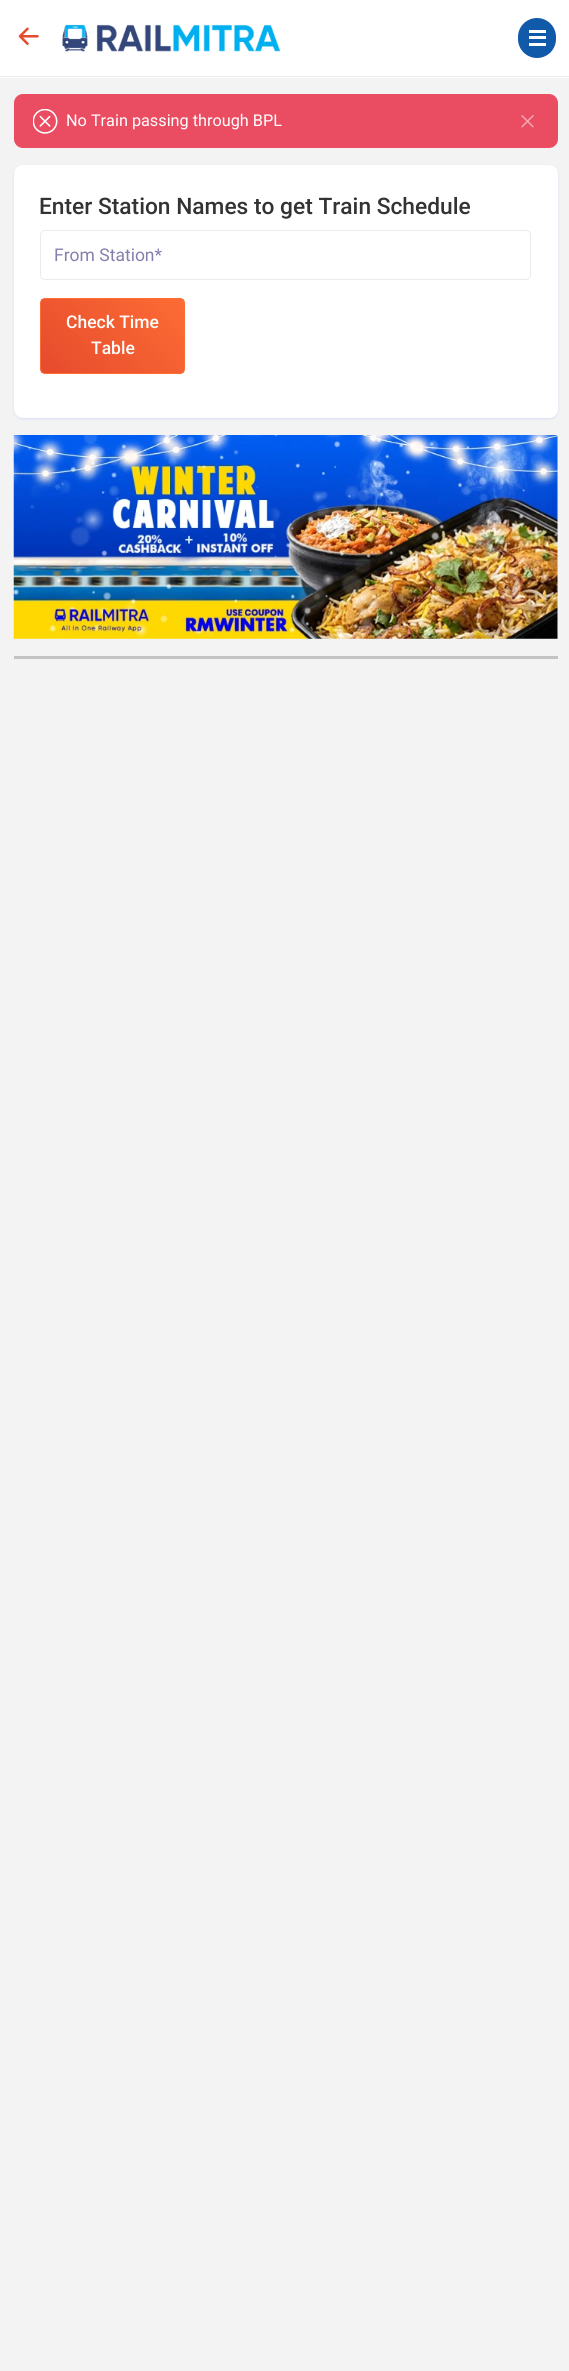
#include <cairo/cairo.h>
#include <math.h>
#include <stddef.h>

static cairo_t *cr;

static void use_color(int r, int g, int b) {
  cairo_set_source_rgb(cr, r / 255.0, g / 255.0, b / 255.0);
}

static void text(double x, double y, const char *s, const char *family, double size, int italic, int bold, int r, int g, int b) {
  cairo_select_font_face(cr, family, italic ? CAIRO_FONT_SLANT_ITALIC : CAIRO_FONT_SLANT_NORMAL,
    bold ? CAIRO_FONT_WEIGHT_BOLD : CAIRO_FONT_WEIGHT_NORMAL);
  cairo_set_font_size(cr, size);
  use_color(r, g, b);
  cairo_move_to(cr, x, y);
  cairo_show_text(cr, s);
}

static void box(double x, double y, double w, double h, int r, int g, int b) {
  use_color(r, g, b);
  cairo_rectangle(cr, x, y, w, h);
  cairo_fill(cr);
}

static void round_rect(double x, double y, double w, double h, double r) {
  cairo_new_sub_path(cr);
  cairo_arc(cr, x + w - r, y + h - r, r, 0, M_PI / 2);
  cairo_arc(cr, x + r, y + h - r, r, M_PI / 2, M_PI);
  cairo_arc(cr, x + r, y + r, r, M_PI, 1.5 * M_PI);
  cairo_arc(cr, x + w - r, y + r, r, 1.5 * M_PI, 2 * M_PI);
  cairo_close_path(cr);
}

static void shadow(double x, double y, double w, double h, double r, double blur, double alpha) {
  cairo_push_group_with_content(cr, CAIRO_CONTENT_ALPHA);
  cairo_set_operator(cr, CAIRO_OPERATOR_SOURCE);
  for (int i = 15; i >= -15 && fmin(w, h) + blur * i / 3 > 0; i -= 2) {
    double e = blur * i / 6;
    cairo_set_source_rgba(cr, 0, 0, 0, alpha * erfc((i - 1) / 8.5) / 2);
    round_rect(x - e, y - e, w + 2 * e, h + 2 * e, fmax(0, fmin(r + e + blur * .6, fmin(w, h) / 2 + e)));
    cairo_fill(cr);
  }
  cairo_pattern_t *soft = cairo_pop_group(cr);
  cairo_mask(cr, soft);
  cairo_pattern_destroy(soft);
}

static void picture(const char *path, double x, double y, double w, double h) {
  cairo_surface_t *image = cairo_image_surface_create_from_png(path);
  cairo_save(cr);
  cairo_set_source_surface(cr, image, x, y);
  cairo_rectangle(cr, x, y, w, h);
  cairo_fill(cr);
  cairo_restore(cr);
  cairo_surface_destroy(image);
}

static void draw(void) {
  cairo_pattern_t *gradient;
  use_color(243, 243, 243);
  cairo_paint(cr);
  box(0, 0, 569, 78, 255, 255, 255);
  box(0, 76, 569, 1, 235, 235, 235);
  picture("img_01.png", 18, 27, 21, 18);
  picture("img_02.png", 62, 24, 219, 28);
  use_color(17, 89, 169);
  round_rect(518, 18, 38, 40, 19);
  cairo_fill(cr);
  box(529, 30, 17, 3, 255, 255, 255);
  box(529, 36, 17, 3, 255, 255, 255);
  box(529, 43, 17, 3, 255, 255, 255);
  use_color(234, 76, 98);
  round_rect(14, 94, 544, 54, 9);
  cairo_fill(cr);
  picture("img_03.png", 33, 109, 25, 25);
  picture("img_04.png", 521, 115, 13, 13);
  use_color(215, 222, 244);
  shadow(14, 166, 544, 253, 9, 1, 1);
  use_color(255, 255, 255);
  round_rect(14, 165, 544, 253, 9);
  cairo_fill(cr);
  round_rect(40.5, 230.5, 490, 49, 4.5);
  use_color(235, 235, 235);
  cairo_set_line_width(cr, 1);
  cairo_stroke(cr);
  cairo_save(cr);
  round_rect(40, 298, 145, 76, 5);
  cairo_clip(cr);
  gradient = cairo_pattern_create_linear(58, 390, 167, 282);
  cairo_pattern_add_color_stop_rgba(gradient, 0, 0.902, 0.294, 0.176, 1);
  cairo_pattern_add_color_stop_rgba(gradient, 1, 0.992, 0.424, 0.204, 1);
  cairo_set_source(cr, gradient);
  cairo_pattern_destroy(gradient);
  cairo_rectangle(cr, 41, 299, 143, 74);
  cairo_fill(cr);
  cairo_restore(cr);
  round_rect(40.5, 298.5, 144, 75, 4.5);
  use_color(253, 108, 52);
  cairo_stroke(cr);
  picture("img_05.png", 13, 435, 545, 204);
  box(14, 656, 544, 3, 195, 195, 195);
  text(66, 126, "No Train passing through BPL", "Roboto", 16.25, 0, 0, 255, 255, 255);
  text(39, 214, "Enter Station Names to get Train Schedule", "Roboto Medium", 22.75, 0, 0, 51, 51, 51);
  text(54, 261, "From Station*", "Roboto", 17.5, 0, 0, 132, 128, 174);
  text(66, 328, "Check Time", "Roboto Medium", 17.5, 0, 0, 255, 255, 255);
  text(91, 354, "Table", "Roboto Medium", 17.5, 0, 0, 255, 255, 255);
}

int main(void) {
  cairo_surface_t *surface = cairo_image_surface_create(CAIRO_FORMAT_RGB24, 569, 2371);
  cr = cairo_create(surface);
  cairo_font_options_t *options = cairo_font_options_create();
  cairo_font_options_set_hint_metrics(options, CAIRO_HINT_METRICS_OFF);
  cairo_font_options_set_hint_style(options, CAIRO_HINT_STYLE_NONE);
  cairo_set_font_options(cr, options);
  cairo_set_miter_limit(cr, 4);
  draw();
  cairo_surface_write_to_png(surface, "out.png");
  cairo_font_options_destroy(options);
  cairo_destroy(cr);
  cairo_surface_destroy(surface);
  return 0;
}
